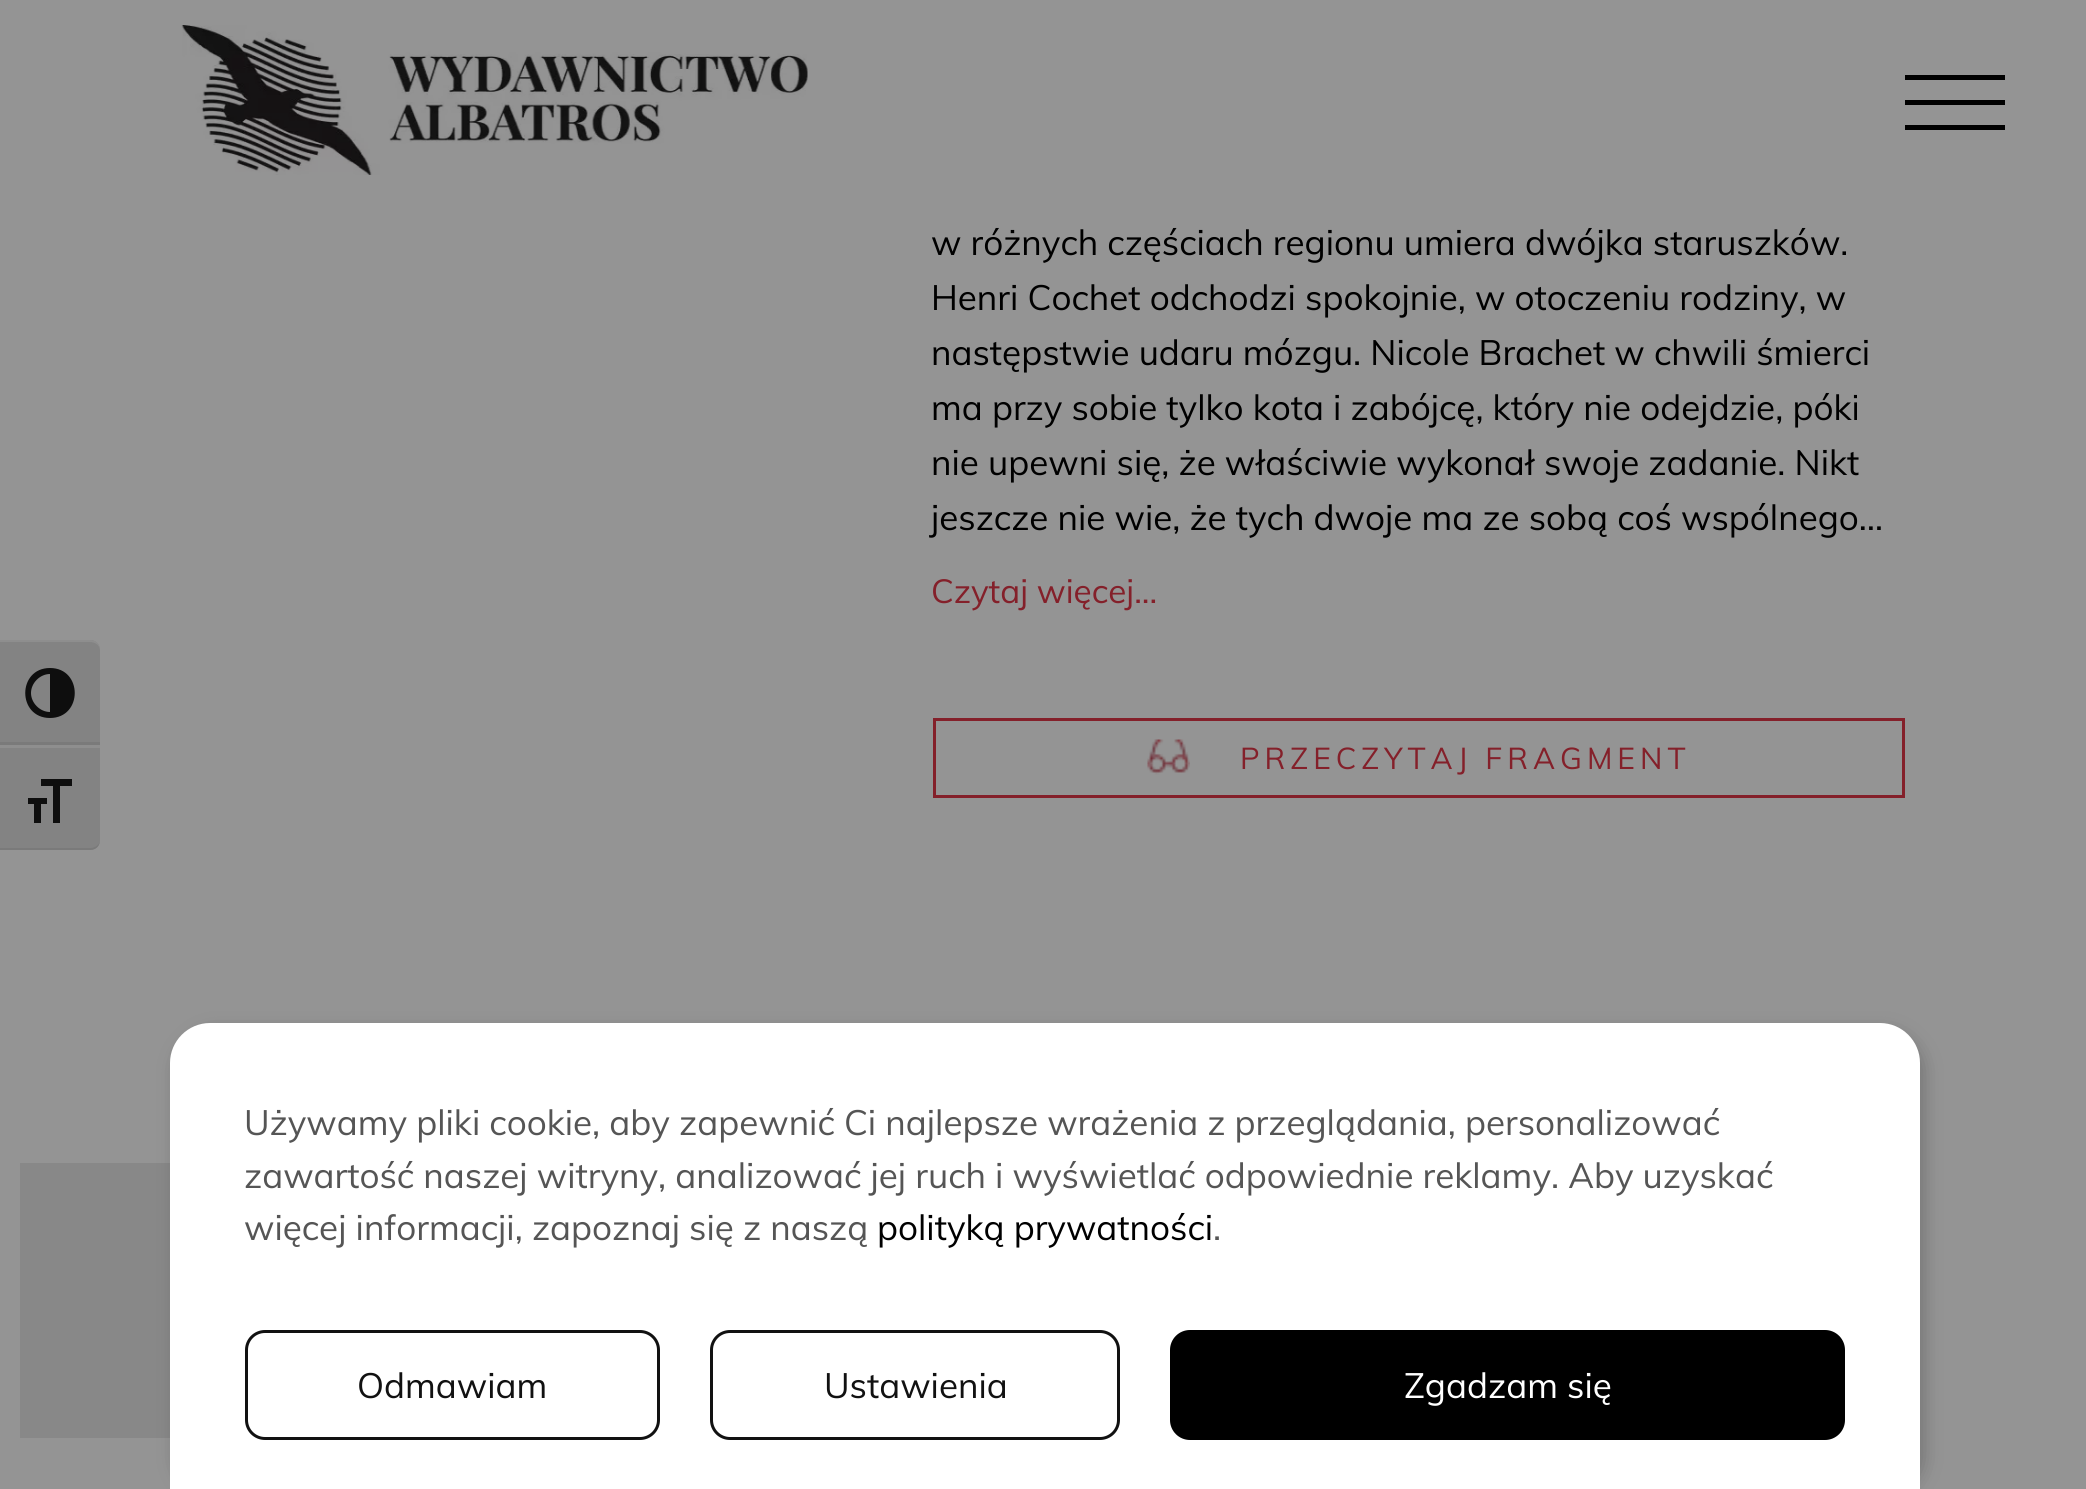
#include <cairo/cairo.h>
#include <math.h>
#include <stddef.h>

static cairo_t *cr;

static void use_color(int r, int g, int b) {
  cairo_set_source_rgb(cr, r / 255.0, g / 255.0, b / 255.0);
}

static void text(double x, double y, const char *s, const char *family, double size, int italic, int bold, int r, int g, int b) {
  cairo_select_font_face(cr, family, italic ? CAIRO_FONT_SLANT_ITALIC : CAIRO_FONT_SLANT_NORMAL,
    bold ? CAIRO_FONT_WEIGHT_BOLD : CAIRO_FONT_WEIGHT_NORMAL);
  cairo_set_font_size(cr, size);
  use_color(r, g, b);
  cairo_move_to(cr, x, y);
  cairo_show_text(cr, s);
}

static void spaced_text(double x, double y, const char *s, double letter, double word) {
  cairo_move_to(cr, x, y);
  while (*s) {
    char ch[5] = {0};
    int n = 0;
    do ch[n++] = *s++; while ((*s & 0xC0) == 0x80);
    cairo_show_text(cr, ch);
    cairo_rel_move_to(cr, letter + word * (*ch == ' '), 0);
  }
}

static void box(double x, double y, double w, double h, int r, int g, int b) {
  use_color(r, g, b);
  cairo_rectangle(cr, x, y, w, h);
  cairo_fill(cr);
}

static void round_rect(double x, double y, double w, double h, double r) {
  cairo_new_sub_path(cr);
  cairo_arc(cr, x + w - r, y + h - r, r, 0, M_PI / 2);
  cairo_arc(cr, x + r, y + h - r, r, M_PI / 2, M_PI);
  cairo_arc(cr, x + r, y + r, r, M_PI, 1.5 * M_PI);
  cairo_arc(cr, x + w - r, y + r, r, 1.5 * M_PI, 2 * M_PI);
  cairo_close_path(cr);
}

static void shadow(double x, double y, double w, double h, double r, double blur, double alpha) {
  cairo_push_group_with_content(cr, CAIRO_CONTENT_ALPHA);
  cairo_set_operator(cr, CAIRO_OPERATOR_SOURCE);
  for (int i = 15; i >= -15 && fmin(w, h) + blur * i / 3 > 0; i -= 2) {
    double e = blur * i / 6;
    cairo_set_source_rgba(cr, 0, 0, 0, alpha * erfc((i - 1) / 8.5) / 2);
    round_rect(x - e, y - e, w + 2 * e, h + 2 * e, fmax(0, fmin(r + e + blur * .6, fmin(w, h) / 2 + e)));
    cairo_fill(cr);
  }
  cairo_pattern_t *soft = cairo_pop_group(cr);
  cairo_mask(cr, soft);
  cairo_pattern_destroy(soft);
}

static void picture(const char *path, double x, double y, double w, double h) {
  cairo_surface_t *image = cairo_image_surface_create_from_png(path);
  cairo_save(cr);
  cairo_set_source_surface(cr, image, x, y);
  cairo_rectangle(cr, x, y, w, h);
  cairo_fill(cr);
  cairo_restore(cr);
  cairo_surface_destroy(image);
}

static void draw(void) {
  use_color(148, 148, 148);
  cairo_paint(cr);
  picture("img_01.png", 181, 25, 627, 150);
  box(1905, 75, 100, 5, 0, 0, 0);
  box(1905, 100, 100, 5, 0, 0, 0);
  box(1905, 125, 100, 5, 0, 0, 0);
  use_color(131, 131, 131);
  cairo_new_path(cr);
  cairo_move_to(cr, 0, 640);
  cairo_line_to(cr, 90, 640);
  cairo_curve_to(cr, 95.5, 640, 100, 644.5, 100, 650);
  cairo_line_to(cr, 100, 745);
  cairo_line_to(cr, 0, 745);
  cairo_close_path(cr);
  cairo_fill(cr);
  use_color(142, 142, 142);
  cairo_new_path(cr);
  cairo_move_to(cr, 0, 640);
  cairo_line_to(cr, 0, 642);
  cairo_line_to(cr, 90, 642);
  cairo_curve_to(cr, 96, 642, 100, 646, 100, 650);
  cairo_curve_to(cr, 100, 644, 96, 640, 90, 640);
  cairo_close_path(cr);
  cairo_fill(cr);
  box(0, 742, 100, 3, 122, 122, 122);
  use_color(14, 14, 14);
  cairo_new_path(cr);
  cairo_move_to(cr, 50, 668);
  cairo_curve_to(cr, 17, 668, 17, 718, 50, 718);
  cairo_curve_to(cr, 83, 718, 83, 668, 50, 668);
  cairo_close_path(cr);
  cairo_move_to(cr, 31, 693);
  cairo_curve_to(cr, 31, 683, 40, 674, 50, 674);
  cairo_line_to(cr, 50, 712);
  cairo_curve_to(cr, 40, 712, 31, 703, 31, 693);
  cairo_close_path(cr);
  cairo_fill(cr);
  use_color(131, 131, 131);
  cairo_new_path(cr);
  cairo_move_to(cr, 0, 745);
  cairo_line_to(cr, 100, 745);
  cairo_line_to(cr, 100, 840);
  cairo_curve_to(cr, 100, 845.5, 95.5, 850, 90, 850);
  cairo_line_to(cr, 0, 850);
  cairo_close_path(cr);
  cairo_fill(cr);
  box(0, 745, 100, 3, 142, 142, 142);
  use_color(122, 122, 122);
  cairo_new_path(cr);
  cairo_move_to(cr, 0, 848);
  cairo_line_to(cr, 0, 850);
  cairo_line_to(cr, 90, 850);
  cairo_curve_to(cr, 96, 850, 100, 846, 100, 840);
  cairo_curve_to(cr, 100, 844, 96, 848, 90, 848);
  cairo_close_path(cr);
  cairo_fill(cr);
  use_color(14, 14, 14);
  cairo_new_path(cr);
  cairo_move_to(cr, 28, 798);
  cairo_line_to(cr, 47, 798);
  cairo_line_to(cr, 47, 804);
  cairo_line_to(cr, 41, 804);
  cairo_line_to(cr, 41, 823);
  cairo_line_to(cr, 34, 823);
  cairo_line_to(cr, 34, 804);
  cairo_line_to(cr, 28, 804);
  cairo_close_path(cr);
  cairo_move_to(cr, 72, 786);
  cairo_line_to(cr, 60, 786);
  cairo_line_to(cr, 60, 823);
  cairo_line_to(cr, 53, 823);
  cairo_line_to(cr, 53, 786);
  cairo_line_to(cr, 41, 786);
  cairo_line_to(cr, 41, 779);
  cairo_line_to(cr, 72, 779);
  cairo_close_path(cr);
  cairo_fill(cr);
  cairo_rectangle(cr, 934.5, 719.5, 969, 77);
  use_color(132, 32, 42);
  cairo_set_line_width(cr, 3);
  cairo_stroke(cr);
  picture("img_02.png", 1147, 739, 43, 36);
  box(20, 1163, 150, 275, 136, 136, 136);
  use_color(0, 0, 0);
  shadow(175, 1030, 1750, 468, 40, 9, 0.2);
  use_color(255, 255, 255);
  cairo_new_path(cr);
  cairo_move_to(cr, 210, 1023);
  cairo_line_to(cr, 1880, 1023);
  cairo_curve_to(cr, 1902, 1023, 1920, 1041, 1920, 1063);
  cairo_line_to(cr, 1920, 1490);
  cairo_line_to(cr, 170, 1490);
  cairo_line_to(cr, 170, 1063);
  cairo_curve_to(cr, 170, 1041, 188, 1023, 210, 1023);
  cairo_close_path(cr);
  cairo_fill(cr);
  round_rect(246.5, 1331.5, 412, 107, 18.5);
  use_color(17, 17, 17);
  cairo_stroke(cr);
  round_rect(711.5, 1331.5, 407, 107, 18.5);
  cairo_stroke(cr);
  use_color(0, 0, 0);
  round_rect(1170, 1330, 675, 110, 20);
  cairo_fill(cr);
  text(931, 255, "w różnych częściach regionu umiera dwójka staruszków.", "Muli", 35, 0, 0, 0, 0, 0);
  text(931, 310, "Henri Cochet odchodzi spokojnie, w otoczeniu rodziny, w", "Muli", 35, 0, 0, 0, 0, 0);
  text(931, 365, "następstwie udaru mózgu. Nicole Brachet w chwili śmierci", "Muli", 35, 0, 0, 0, 0, 0);
  text(931, 420, "ma przy sobie tylko kota i zabójcę, który nie odejdzie, póki", "Muli", 35, 0, 0, 0, 0, 0);
  text(931, 475, "nie upewni się, że właściwie wykonał swoje zadanie. Nikt", "Muli", 35, 0, 0, 0, 0, 0);
  text(931, 530, "jeszcze nie wie, że tych dwoje ma ze sobą coś wspólnego…", "Muli", 35, 0, 0, 0, 0, 0);
  text(931, 603, "Czytaj więcej...", "Muli", 33.25, 0, 0, 132, 32, 42);
  cairo_set_font_size(cr, 30);
  spaced_text(1240, 769, "PRZECZYTAJ FRAGMENT", 5, 0);
  text(244, 1135, "Używamy pliki cookie, aby zapewnić Ci najlepsze wrażenia z przeglądania, personalizować", "Muli", 35, 0, 0, 85, 85, 85);
  text(244, 1188, "zawartość naszej witryny, analizować jej ruch i wyświetlać odpowiednie reklamy. Aby uzyskać", "Muli", 35, 0, 0, 85, 85, 85);
  text(244, 1240, "więcej informacji, zapoznaj się z naszą", "Muli", 35, 0, 0, 85, 85, 85);
  text(877, 1240, "polityką prywatności", "Muli", 35, 0, 0, 0, 0, 0);
  text(1213, 1240, ".", "Muli", 35, 0, 0, 85, 85, 85);
  text(357, 1398, "Odmawiam", "Muli", 35, 0, 0, 17, 17, 17);
  text(824, 1398, "Ustawienia", "Muli", 35, 0, 0, 17, 17, 17);
  text(1404, 1398, "Zgadzam się", "Muli", 35, 0, 0, 255, 255, 255);
}

int main(void) {
  cairo_surface_t *surface = cairo_image_surface_create(CAIRO_FORMAT_RGB24, 2086, 1489);
  cr = cairo_create(surface);
  cairo_font_options_t *options = cairo_font_options_create();
  cairo_font_options_set_hint_metrics(options, CAIRO_HINT_METRICS_OFF);
  cairo_font_options_set_hint_style(options, CAIRO_HINT_STYLE_NONE);
  cairo_set_font_options(cr, options);
  cairo_set_miter_limit(cr, 4);
  draw();
  cairo_surface_write_to_png(surface, "out.png");
  cairo_font_options_destroy(options);
  cairo_destroy(cr);
  cairo_surface_destroy(surface);
  return 0;
}
